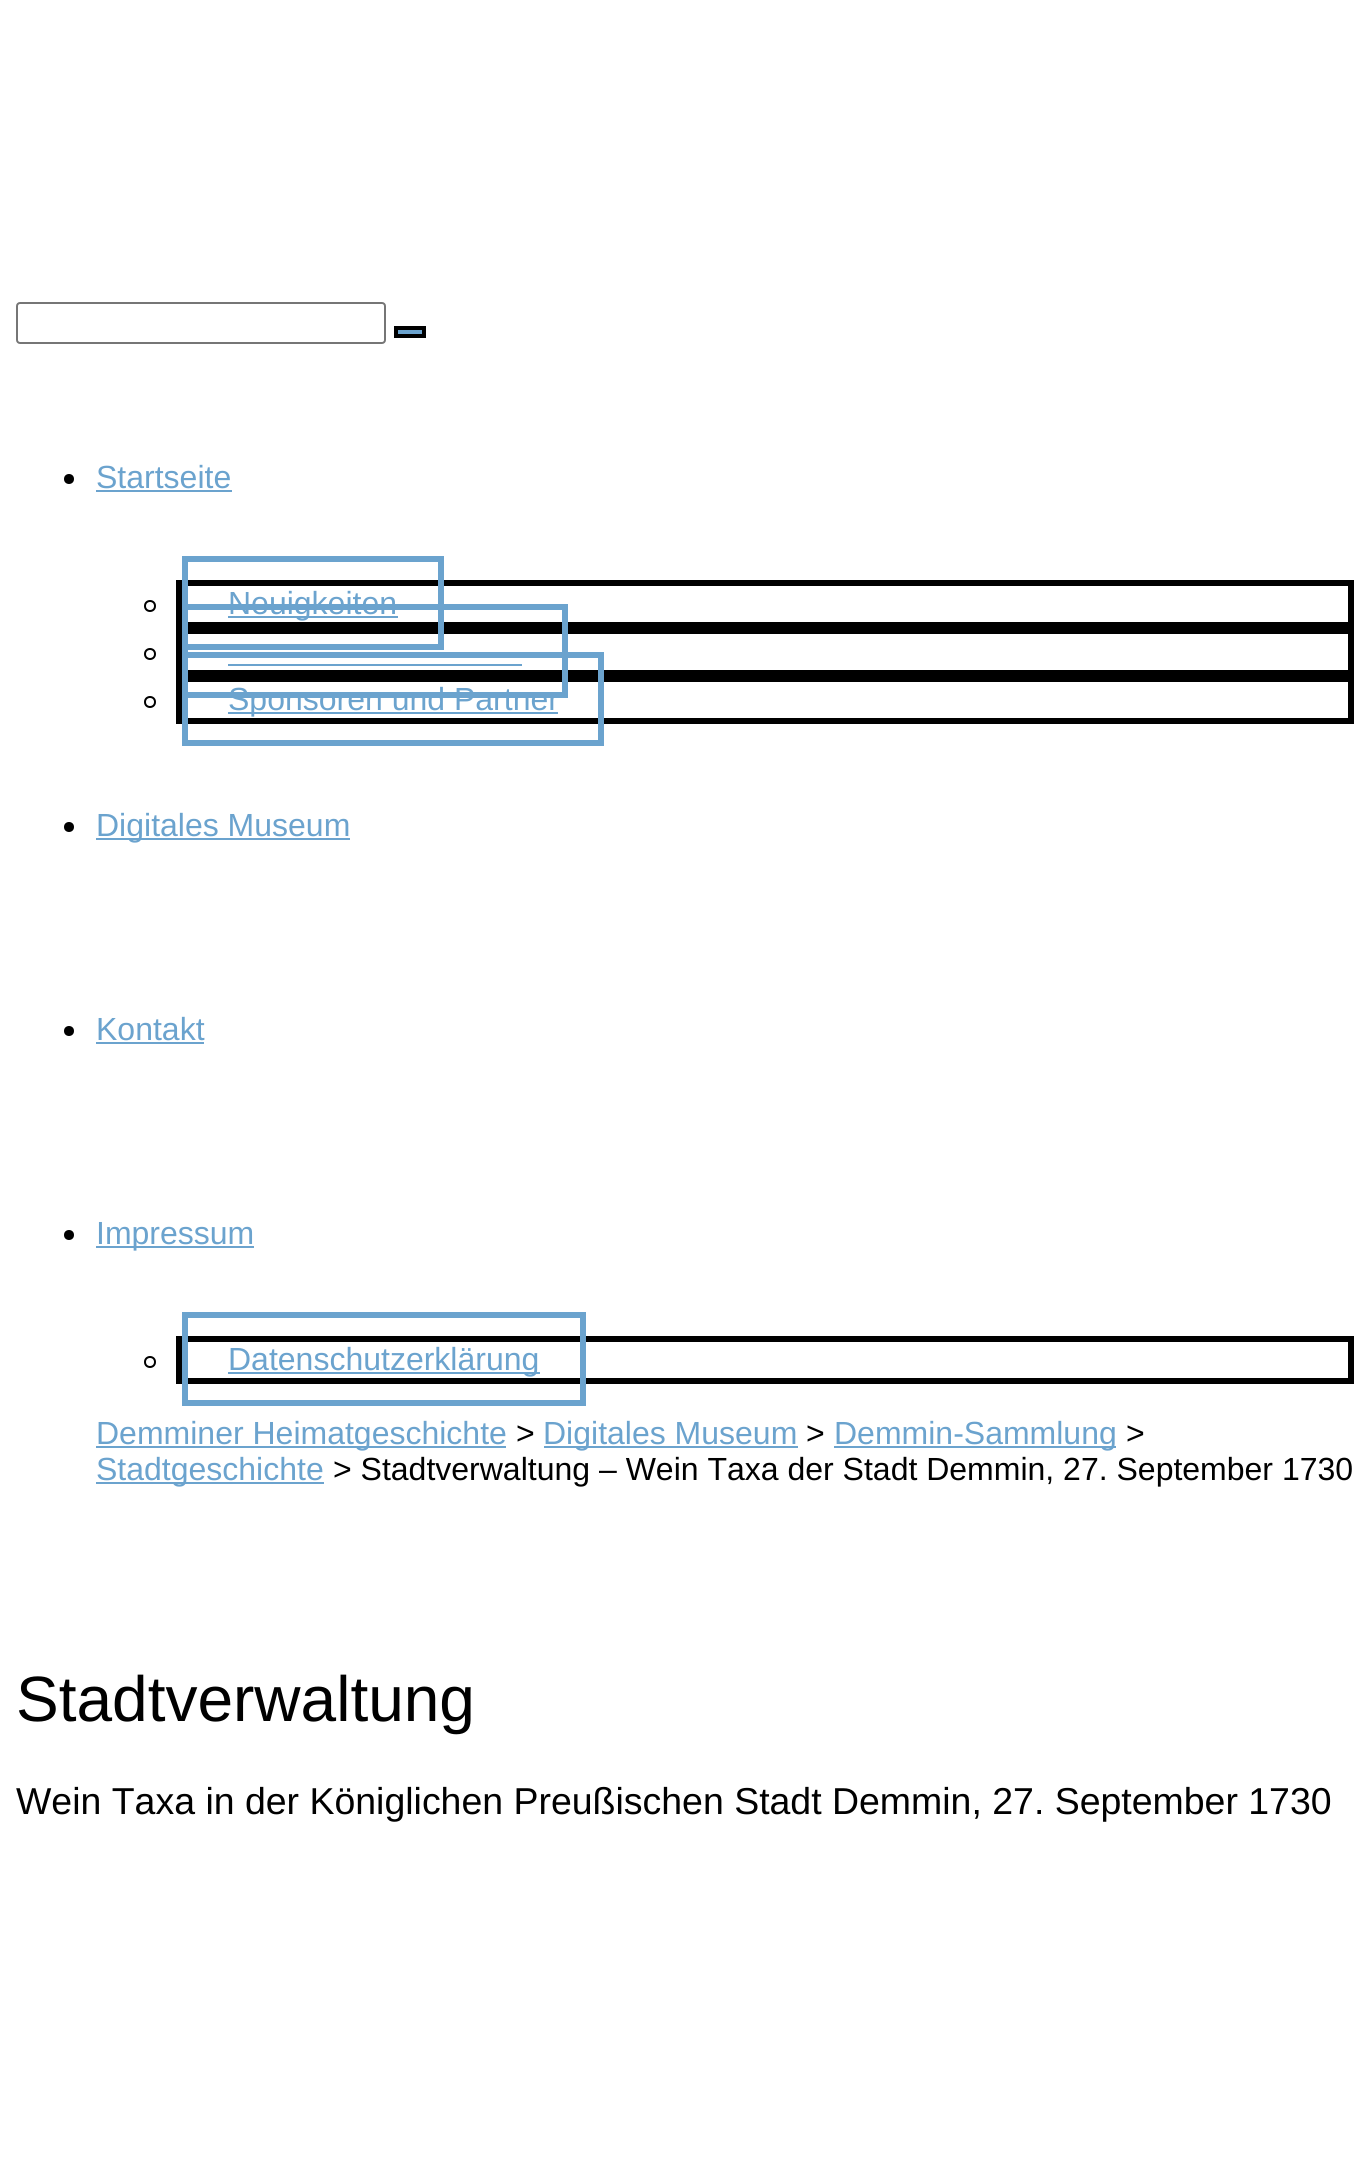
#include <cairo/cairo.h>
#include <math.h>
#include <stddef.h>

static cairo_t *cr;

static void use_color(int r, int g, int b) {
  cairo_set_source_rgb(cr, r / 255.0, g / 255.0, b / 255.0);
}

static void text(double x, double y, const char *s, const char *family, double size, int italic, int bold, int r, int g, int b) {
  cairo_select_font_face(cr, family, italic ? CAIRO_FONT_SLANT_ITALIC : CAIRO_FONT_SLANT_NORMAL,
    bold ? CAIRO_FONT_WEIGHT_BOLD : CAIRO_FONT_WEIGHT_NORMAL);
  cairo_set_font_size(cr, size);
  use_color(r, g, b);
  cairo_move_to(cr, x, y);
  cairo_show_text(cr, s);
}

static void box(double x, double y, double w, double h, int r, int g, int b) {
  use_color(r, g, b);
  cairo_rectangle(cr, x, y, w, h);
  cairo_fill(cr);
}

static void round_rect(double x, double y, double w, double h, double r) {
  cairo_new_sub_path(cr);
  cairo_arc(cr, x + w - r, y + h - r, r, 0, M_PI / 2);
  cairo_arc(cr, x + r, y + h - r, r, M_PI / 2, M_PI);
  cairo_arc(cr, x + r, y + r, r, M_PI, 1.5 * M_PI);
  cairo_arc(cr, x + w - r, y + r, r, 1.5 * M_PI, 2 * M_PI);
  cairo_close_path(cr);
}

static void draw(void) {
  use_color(255, 255, 255);
  cairo_paint(cr);
  round_rect(17, 303, 368, 40, 3);
  use_color(118, 118, 118);
  cairo_stroke(cr);
  use_color(107, 163, 206);
  cairo_rectangle(cr, 396, 328, 28, 8);
  cairo_fill_preserve(cr);
  use_color(0, 0, 0);
  cairo_set_line_width(cr, 4);
  cairo_stroke(cr);
  cairo_arc(cr, 69, 479, 5, 0, 2 * M_PI);
  cairo_fill(cr);
  box(96, 490, 136, 2, 107, 163, 206);
  cairo_rectangle(cr, 179, 583, 1172, 42);
  use_color(0, 0, 0);
  cairo_set_line_width(cr, 6);
  cairo_stroke(cr);
  cairo_arc(cr, 150, 606, 5, 0, 2 * M_PI);
  cairo_set_line_width(cr, 2);
  cairo_stroke(cr);
  cairo_rectangle(cr, 179, 631, 1172, 42);
  cairo_set_line_width(cr, 6);
  cairo_stroke(cr);
  cairo_rectangle(cr, 185, 559, 256, 88);
  use_color(107, 163, 206);
  cairo_stroke(cr);
  box(228, 616, 170, 2, 107, 163, 206);
  cairo_arc(cr, 150, 654, 5, 0, 2 * M_PI);
  use_color(0, 0, 0);
  cairo_set_line_width(cr, 2);
  cairo_stroke(cr);
  cairo_rectangle(cr, 179, 679, 1172, 42);
  cairo_set_line_width(cr, 6);
  cairo_stroke(cr);
  cairo_rectangle(cr, 185, 607, 380, 88);
  use_color(107, 163, 206);
  cairo_stroke(cr);
  box(228, 664, 294, 2, 107, 163, 206);
  cairo_arc(cr, 150, 702, 5, 0, 2 * M_PI);
  use_color(0, 0, 0);
  cairo_set_line_width(cr, 2);
  cairo_stroke(cr);
  cairo_rectangle(cr, 185, 655, 416, 88);
  use_color(107, 163, 206);
  cairo_set_line_width(cr, 6);
  cairo_stroke(cr);
  box(228, 712, 330, 2, 107, 163, 206);
  use_color(0, 0, 0);
  cairo_arc(cr, 69, 827, 5, 0, 2 * M_PI);
  cairo_fill(cr);
  box(96, 838, 254, 2, 107, 163, 206);
  use_color(0, 0, 0);
  cairo_arc(cr, 69, 1031, 5, 0, 2 * M_PI);
  cairo_fill(cr);
  box(96, 1042, 108, 2, 107, 163, 206);
  use_color(0, 0, 0);
  cairo_arc(cr, 69, 1235, 5, 0, 2 * M_PI);
  cairo_fill(cr);
  box(96, 1246, 158, 2, 107, 163, 206);
  cairo_rectangle(cr, 179, 1339, 1172, 42);
  use_color(0, 0, 0);
  cairo_stroke(cr);
  cairo_arc(cr, 150, 1362, 5, 0, 2 * M_PI);
  cairo_set_line_width(cr, 2);
  cairo_stroke(cr);
  cairo_rectangle(cr, 185, 1315, 398, 88);
  use_color(107, 163, 206);
  cairo_set_line_width(cr, 6);
  cairo_stroke(cr);
  box(228, 1372, 312, 2, 107, 163, 206);
  box(96, 1446, 410, 2, 107, 163, 206);
  box(544, 1446, 254, 2, 107, 163, 206);
  box(834, 1446, 282, 2, 107, 163, 206);
  box(96, 1482, 228, 2, 107, 163, 206);
  text(96, 488, "Startseite", "Liberation Sans", 32, 0, 0, 107, 163, 206);
  text(228, 614, "Neuigkeiten", "Liberation Sans", 32, 0, 0, 107, 163, 206);
  text(228, 710, "Sponsoren und Partner", "Liberation Sans", 32, 0, 0, 107, 163, 206);
  text(96, 836, "Digitales Museum", "Liberation Sans", 32, 0, 0, 107, 163, 206);
  text(96, 1040, "Kontakt", "Liberation Sans", 32, 0, 0, 107, 163, 206);
  text(96, 1244, "Impressum", "Liberation Sans", 32, 0, 0, 107, 163, 206);
  text(228, 1370, "Datenschutzerklärung", "Liberation Sans", 32, 0, 0, 107, 163, 206);
  text(96, 1444, "Demminer Heimatgeschichte", "Liberation Sans", 32, 0, 0, 107, 163, 206);
  text(516, 1444, ">", "Liberation Sans", 32, 0, 0, 0, 0, 0);
  text(543, 1444, "Digitales Museum", "Liberation Sans", 32, 0, 0, 107, 163, 206);
  text(806, 1444, ">", "Liberation Sans", 32, 0, 0, 0, 0, 0);
  text(834, 1444, "Demmin-Sammlung", "Liberation Sans", 32, 0, 0, 107, 163, 206);
  text(1126, 1444, ">", "Liberation Sans", 32, 0, 0, 0, 0, 0);
  text(96, 1480, "Stadtgeschichte", "Liberation Sans", 32, 0, 0, 107, 163, 206);
  text(333, 1480, "> Stadtverwaltung – Wein Taxa der Stadt Demmin, 27. September 1730", "Liberation Sans", 32, 0, 0, 0, 0, 0);
  text(16, 1721, "Stadtverwaltung", "Liberation Sans", 64, 0, 0, 0, 0, 0);
  text(16, 1814, "Wein Taxa in der Königlichen Preußischen Stadt Demmin, 27. September 1730", "Liberation Sans", 37.45, 0, 0, 0, 0, 0);
}

int main(void) {
  cairo_surface_t *surface = cairo_image_surface_create(CAIRO_FORMAT_RGB24, 1370, 2176);
  cr = cairo_create(surface);
  cairo_font_options_t *options = cairo_font_options_create();
  cairo_font_options_set_hint_metrics(options, CAIRO_HINT_METRICS_OFF);
  cairo_font_options_set_hint_style(options, CAIRO_HINT_STYLE_NONE);
  cairo_set_font_options(cr, options);
  cairo_set_miter_limit(cr, 4);
  draw();
  cairo_surface_write_to_png(surface, "out.png");
  cairo_font_options_destroy(options);
  cairo_destroy(cr);
  cairo_surface_destroy(surface);
  return 0;
}
